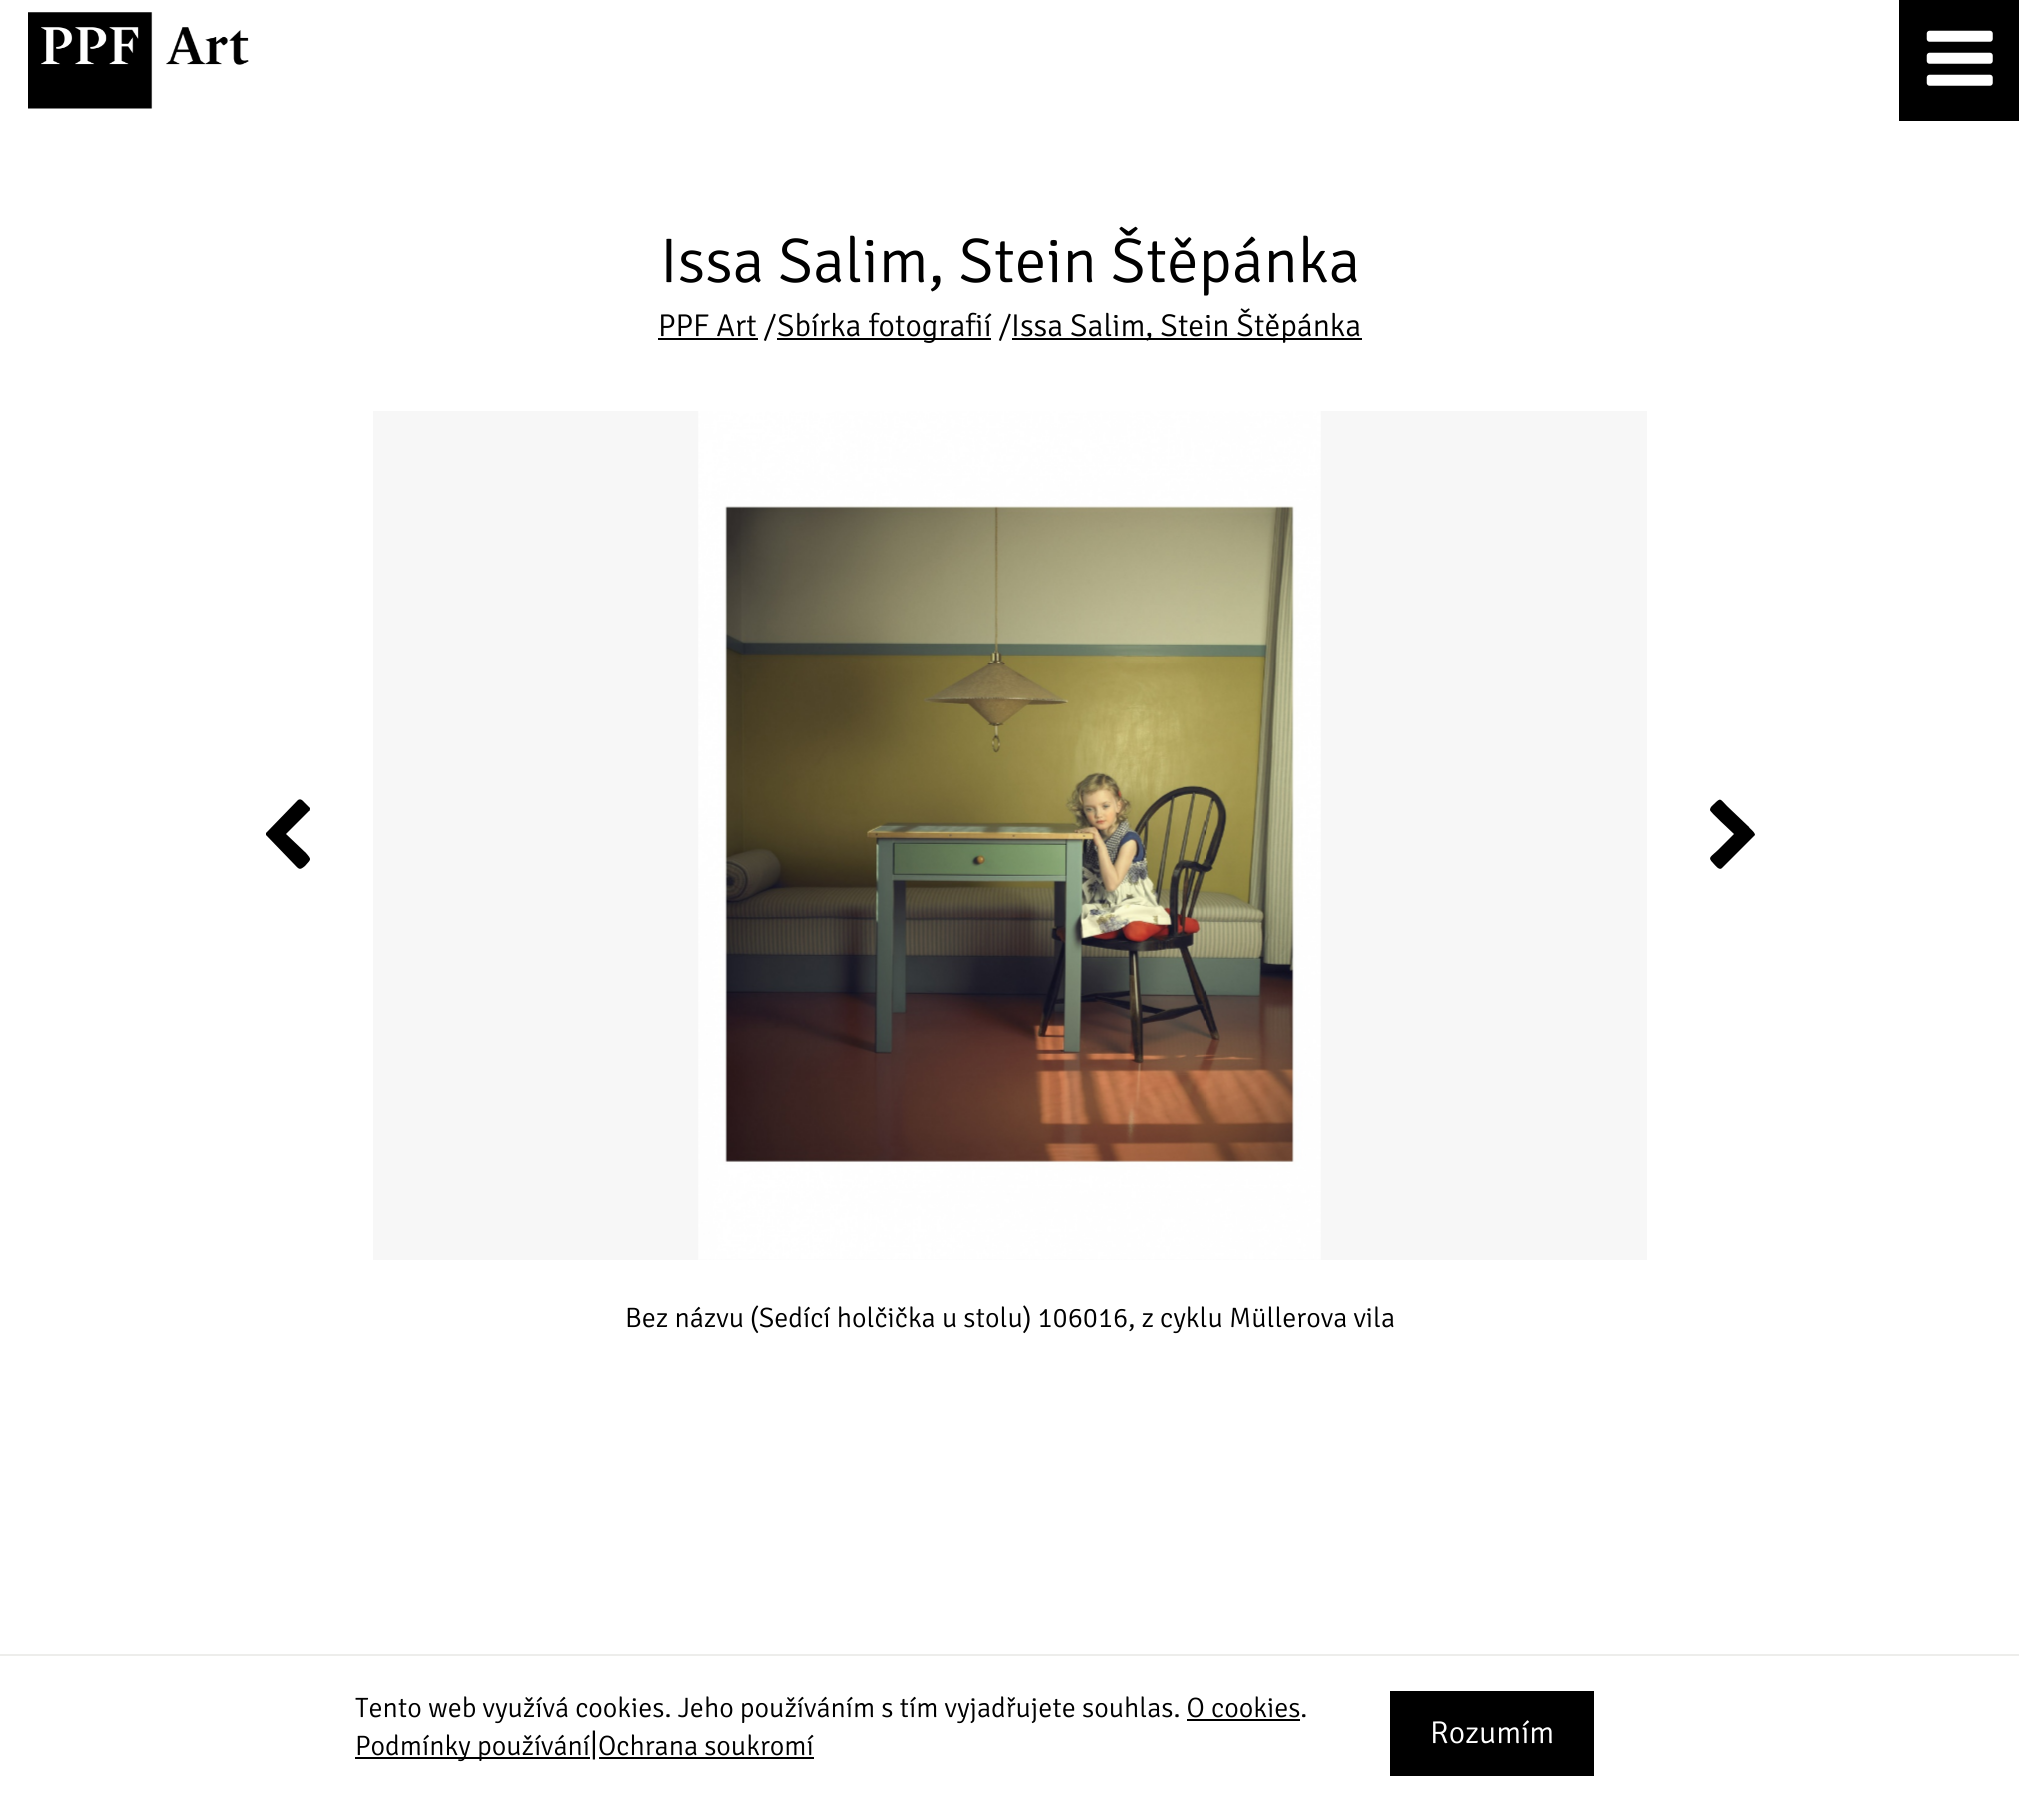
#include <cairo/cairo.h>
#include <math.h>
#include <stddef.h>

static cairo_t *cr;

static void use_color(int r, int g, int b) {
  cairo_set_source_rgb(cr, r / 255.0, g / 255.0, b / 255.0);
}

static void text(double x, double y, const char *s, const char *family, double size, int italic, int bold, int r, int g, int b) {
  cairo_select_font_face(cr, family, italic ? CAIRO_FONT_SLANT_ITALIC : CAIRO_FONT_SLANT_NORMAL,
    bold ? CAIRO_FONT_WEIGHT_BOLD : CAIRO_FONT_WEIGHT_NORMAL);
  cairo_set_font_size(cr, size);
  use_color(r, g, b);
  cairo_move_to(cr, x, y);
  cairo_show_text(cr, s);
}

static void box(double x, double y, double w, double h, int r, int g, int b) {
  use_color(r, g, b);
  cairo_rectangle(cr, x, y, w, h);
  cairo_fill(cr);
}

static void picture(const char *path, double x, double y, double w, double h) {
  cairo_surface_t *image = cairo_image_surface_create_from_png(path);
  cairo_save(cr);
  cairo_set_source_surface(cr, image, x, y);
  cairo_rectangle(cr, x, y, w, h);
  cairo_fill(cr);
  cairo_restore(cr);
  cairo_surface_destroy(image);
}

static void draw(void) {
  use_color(255, 255, 255);
  cairo_paint(cr);
  picture("img_01.png", 28, 12, 221, 97);
  box(1899, 0, 120, 121, 0, 0, 0);
  picture("img_02.png", 1926, 30, 67, 56);
  box(658, 338, 100, 2, 0, 0, 0);
  box(777, 338, 214, 2, 0, 0, 0);
  box(1012, 338, 350, 2, 0, 0, 0);
  cairo_new_path(cr);
  cairo_move_to(cr, 309, 811);
  cairo_line_to(cr, 286, 834);
  cairo_line_to(cr, 306, 853);
  cairo_curve_to(cr, 312, 860, 311, 859, 305, 866);
  cairo_curve_to(cr, 299, 871, 299, 869, 293, 863);
  cairo_line_to(cr, 266, 835);
  cairo_line_to(cr, 266, 833);
  cairo_line_to(cr, 298, 800);
  cairo_curve_to(cr, 301, 798, 303, 801, 305, 803);
  cairo_line_to(cr, 310, 808);
  cairo_curve_to(cr, 310, 809, 310, 811, 309, 811);
  cairo_close_path(cr);
  cairo_fill(cr);
  cairo_new_path(cr);
  cairo_move_to(cr, 1754, 836);
  cairo_line_to(cr, 1722, 868);
  cairo_curve_to(cr, 1719, 871, 1715, 865, 1713, 863);
  cairo_curve_to(cr, 1707, 857, 1711, 857, 1719, 849);
  cairo_line_to(cr, 1734, 834);
  cairo_curve_to(cr, 1731, 831, 1710, 812, 1710, 810);
  cairo_curve_to(cr, 1710, 807, 1713, 805, 1714, 804);
  cairo_curve_to(cr, 1721, 797, 1720, 799, 1727, 806);
  cairo_line_to(cr, 1749, 827);
  cairo_curve_to(cr, 1749, 828, 1755, 832, 1755, 835);
  cairo_close_path(cr);
  cairo_fill(cr);
  box(373, 411, 1274, 849, 247, 247, 247);
  picture("img_03.png", 698, 411, 623, 849);
  box(0, 1654, 2019, 2, 237, 237, 235);
  box(1187, 1719, 113, 2, 0, 0, 0);
  box(355, 1757, 235, 2, 0, 0, 0);
  box(599, 1757, 215, 2, 0, 0, 0);
  box(1390, 1691, 204, 85, 0, 0, 0);
  text(660, 282, "Issa Salim, Stein Štěpánka", "Signika Light", 63, 0, 0, 0, 0, 0);
  text(658, 336, "PPF Art /", "Signika Light", 31.5, 0, 0, 0, 0, 0);
  text(777, 336, "Sbírka fotografií /", "Signika Light", 31.5, 0, 0, 0, 0, 0);
  text(1011, 336, "Issa Salim, Stein Štěpánka", "Signika Light", 31.5, 0, 0, 0, 0, 0);
  text(625, 1327, "Bez názvu (Sedící holčička u stolu) 106016, z cyklu Müllerova vila", "Signika Light", 28, 0, 0, 0, 0, 0);
  text(355, 1717, "Tento web využívá cookies. Jeho používáním s tím vyjadřujete souhlas. O cookies.", "Signika Light", 28, 0, 0, 0, 0, 0);
  text(355, 1755, "Podmínky používání", "Signika Light", 28, 0, 0, 0, 0, 0);
  text(590, 1755, "|", "Signika Light", 31.5, 0, 0, 0, 0, 0);
  text(598, 1755, "Ochrana soukromí", "Signika Light", 28, 0, 0, 0, 0, 0);
  text(1430, 1743, "Rozumím", "Signika Light", 31.5, 0, 0, 255, 255, 255);
}

int main(void) {
  cairo_surface_t *surface = cairo_image_surface_create(CAIRO_FORMAT_RGB24, 2019, 1811);
  cr = cairo_create(surface);
  cairo_font_options_t *options = cairo_font_options_create();
  cairo_font_options_set_hint_metrics(options, CAIRO_HINT_METRICS_OFF);
  cairo_font_options_set_hint_style(options, CAIRO_HINT_STYLE_NONE);
  cairo_set_font_options(cr, options);
  cairo_set_miter_limit(cr, 4);
  draw();
  cairo_surface_write_to_png(surface, "out.png");
  cairo_font_options_destroy(options);
  cairo_destroy(cr);
  cairo_surface_destroy(surface);
  return 0;
}
